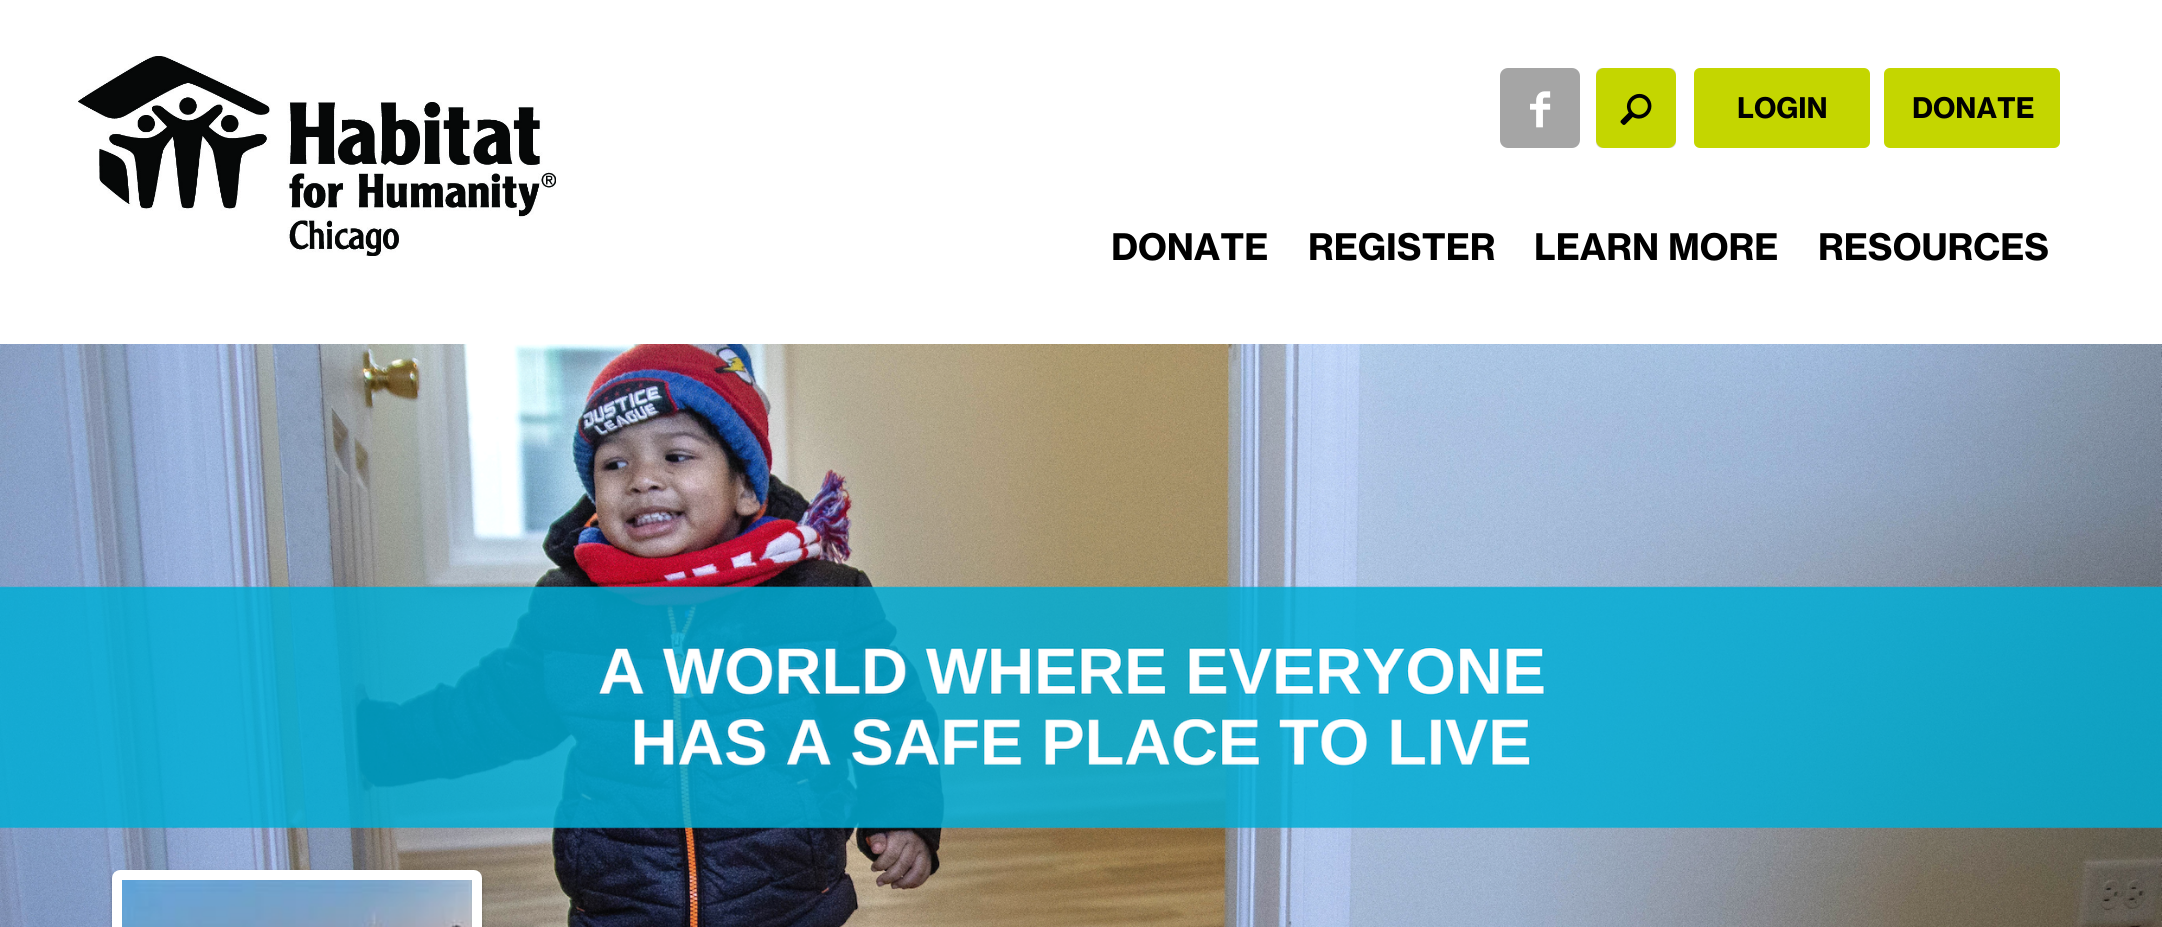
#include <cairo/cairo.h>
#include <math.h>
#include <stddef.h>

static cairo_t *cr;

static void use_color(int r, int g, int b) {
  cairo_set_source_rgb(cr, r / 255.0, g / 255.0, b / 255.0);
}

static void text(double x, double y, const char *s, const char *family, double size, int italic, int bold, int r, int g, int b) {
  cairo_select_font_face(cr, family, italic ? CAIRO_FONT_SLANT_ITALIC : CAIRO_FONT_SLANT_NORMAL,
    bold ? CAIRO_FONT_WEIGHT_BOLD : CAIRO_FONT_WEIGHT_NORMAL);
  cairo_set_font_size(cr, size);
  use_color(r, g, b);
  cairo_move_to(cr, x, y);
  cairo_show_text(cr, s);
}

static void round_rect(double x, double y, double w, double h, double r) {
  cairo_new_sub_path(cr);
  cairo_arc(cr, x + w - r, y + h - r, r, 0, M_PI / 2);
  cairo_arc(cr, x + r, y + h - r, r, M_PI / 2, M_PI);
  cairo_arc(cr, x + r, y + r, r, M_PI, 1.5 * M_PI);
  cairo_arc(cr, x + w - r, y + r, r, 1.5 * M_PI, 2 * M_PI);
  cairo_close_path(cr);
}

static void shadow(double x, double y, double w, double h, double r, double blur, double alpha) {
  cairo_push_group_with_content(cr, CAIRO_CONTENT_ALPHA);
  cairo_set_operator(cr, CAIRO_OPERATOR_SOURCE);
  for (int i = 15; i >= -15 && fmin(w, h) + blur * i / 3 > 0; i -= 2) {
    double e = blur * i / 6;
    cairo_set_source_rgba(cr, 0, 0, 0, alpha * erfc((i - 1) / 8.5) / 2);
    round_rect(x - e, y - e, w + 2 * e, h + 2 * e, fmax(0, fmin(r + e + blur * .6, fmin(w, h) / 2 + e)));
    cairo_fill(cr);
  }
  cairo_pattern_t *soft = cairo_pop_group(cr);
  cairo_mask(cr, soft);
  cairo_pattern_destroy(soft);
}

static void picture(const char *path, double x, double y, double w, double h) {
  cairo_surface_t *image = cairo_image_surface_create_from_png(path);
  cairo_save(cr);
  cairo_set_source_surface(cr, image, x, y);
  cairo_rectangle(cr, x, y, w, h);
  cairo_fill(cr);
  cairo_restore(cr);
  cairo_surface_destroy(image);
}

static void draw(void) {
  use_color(255, 255, 255);
  cairo_paint(cr);
  picture("img_01.png", 78, 56, 478, 200);
  use_color(165, 165, 165);
  round_rect(1500, 68, 80, 80, 8);
  cairo_fill(cr);
  picture("img_02.png", 1530, 91, 21, 37);
  round_rect(1597, 69, 78, 78, 5);
  use_color(221, 218, 214);
  cairo_stroke(cr);
  use_color(196, 214, 0);
  round_rect(1596, 68, 80, 80, 8);
  cairo_fill(cr);
  picture("img_03.png", 1620, 93, 32, 32);
  round_rect(1694, 68, 176, 80, 6);
  cairo_fill(cr);
  round_rect(1884, 68, 176, 80, 6);
  cairo_fill(cr);
  picture("img_04.png", 0, 344, 2162, 583);
  use_color(0, 0, 0);
  shadow(112, 872, 370, 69, 8, 2, 0.25);
  round_rect(117, 875, 360, 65, 3);
  use_color(255, 255, 255);
  cairo_set_line_width(cr, 10);
  cairo_stroke(cr);
  picture("img_05.png", 122, 880, 350, 47);
  text(1737, 118, "LOGIN", "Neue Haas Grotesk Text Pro", 28, 0, 1, 0, 0, 0);
  text(1912, 118, "DONATE", "Neue Haas Grotesk Text Pro", 28, 0, 1, 0, 0, 0);
  text(1111, 260, "DONATE", "Neue Haas Grotesk Text Pro", 36, 0, 1, 0, 0, 0);
  text(1308, 260, "REGISTER", "Neue Haas Grotesk Text Pro", 36, 0, 1, 0, 0, 0);
  text(1534, 260, "LEARN MORE", "Neue Haas Grotesk Text Pro", 36, 0, 1, 0, 0, 0);
  text(1818, 260, "RESOURCES", "Neue Haas Grotesk Text Pro", 36, 0, 1, 0, 0, 0);
}

int main(void) {
  cairo_surface_t *surface = cairo_image_surface_create(CAIRO_FORMAT_RGB24, 2162, 927);
  cr = cairo_create(surface);
  cairo_font_options_t *options = cairo_font_options_create();
  cairo_font_options_set_hint_metrics(options, CAIRO_HINT_METRICS_OFF);
  cairo_font_options_set_hint_style(options, CAIRO_HINT_STYLE_NONE);
  cairo_set_font_options(cr, options);
  cairo_set_miter_limit(cr, 4);
  draw();
  cairo_surface_write_to_png(surface, "out.png");
  cairo_font_options_destroy(options);
  cairo_destroy(cr);
  cairo_surface_destroy(surface);
  return 0;
}
